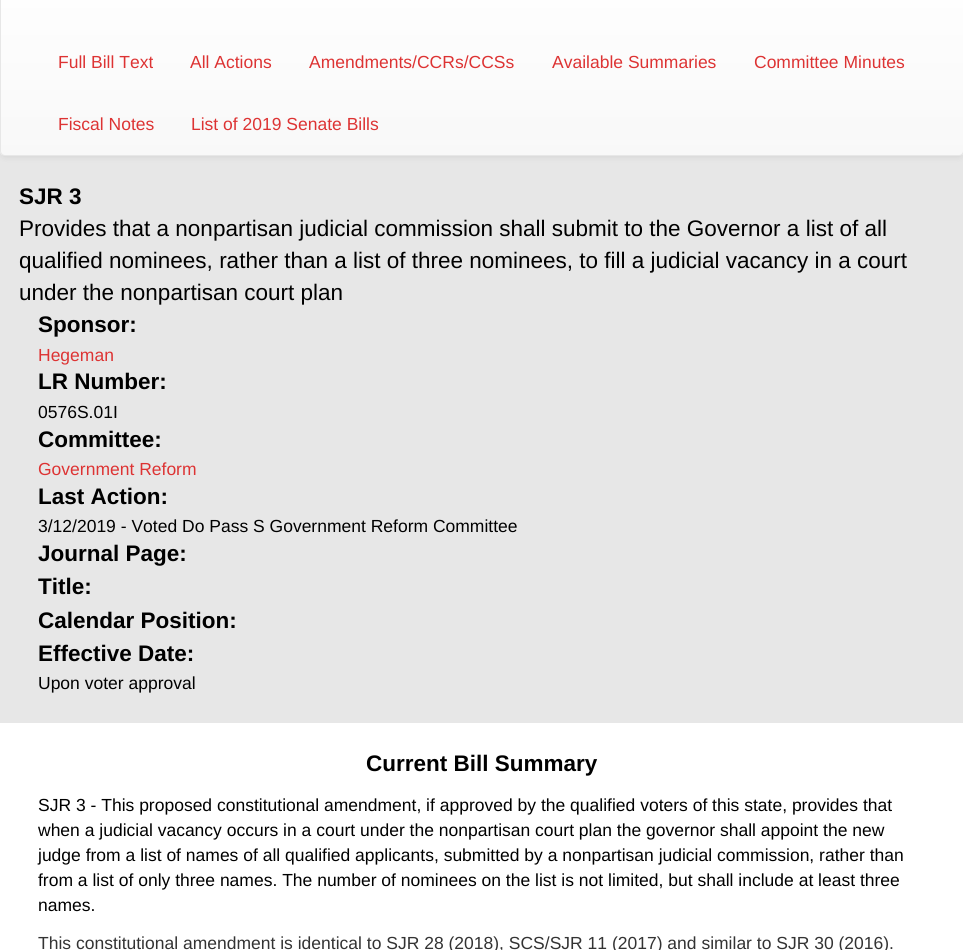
#include <cairo/cairo.h>
#include <math.h>
#include <stddef.h>

static cairo_t *cr;

static void use_color(int r, int g, int b) {
  cairo_set_source_rgb(cr, r / 255.0, g / 255.0, b / 255.0);
}

static void text(double x, double y, const char *s, const char *family, double size, int italic, int bold, int r, int g, int b) {
  cairo_select_font_face(cr, family, italic ? CAIRO_FONT_SLANT_ITALIC : CAIRO_FONT_SLANT_NORMAL,
    bold ? CAIRO_FONT_WEIGHT_BOLD : CAIRO_FONT_WEIGHT_NORMAL);
  cairo_set_font_size(cr, size);
  use_color(r, g, b);
  cairo_move_to(cr, x, y);
  cairo_show_text(cr, s);
}

static void box(double x, double y, double w, double h, int r, int g, int b) {
  use_color(r, g, b);
  cairo_rectangle(cr, x, y, w, h);
  cairo_fill(cr);
}

static void round_rect(double x, double y, double w, double h, double r) {
  cairo_new_sub_path(cr);
  cairo_arc(cr, x + w - r, y + h - r, r, 0, M_PI / 2);
  cairo_arc(cr, x + r, y + h - r, r, M_PI / 2, M_PI);
  cairo_arc(cr, x + r, y + r, r, M_PI, 1.5 * M_PI);
  cairo_arc(cr, x + w - r, y + r, r, 1.5 * M_PI, 2 * M_PI);
  cairo_close_path(cr);
}

static void shadow(double x, double y, double w, double h, double r, double blur, double alpha) {
  cairo_push_group_with_content(cr, CAIRO_CONTENT_ALPHA);
  cairo_set_operator(cr, CAIRO_OPERATOR_SOURCE);
  for (int i = 15; i >= -15 && fmin(w, h) + blur * i / 3 > 0; i -= 2) {
    double e = blur * i / 6;
    cairo_set_source_rgba(cr, 0, 0, 0, alpha * erfc((i - 1) / 8.5) / 2);
    round_rect(x - e, y - e, w + 2 * e, h + 2 * e, fmax(0, fmin(r + e + blur * .6, fmin(w, h) / 2 + e)));
    cairo_fill(cr);
  }
  cairo_pattern_t *soft = cairo_pop_group(cr);
  cairo_mask(cr, soft);
  cairo_pattern_destroy(soft);
}

static void draw(void) {
  cairo_pattern_t *gradient;
  use_color(255, 255, 255);
  cairo_paint(cr);
  box(0, 151, 963, 572, 231, 231, 231);
  use_color(0, 0, 0);
  shadow(0, -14, 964, 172, 5, 3, 0.07);
  cairo_save(cr);
  round_rect(0, -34, 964, 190, 5);
  cairo_clip(cr);
  gradient = cairo_pattern_create_linear(482, -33, 482, 155);
  cairo_pattern_add_color_stop_rgba(gradient, 0, 1, 1, 1, 1);
  cairo_pattern_add_color_stop_rgba(gradient, 1, 0.973, 0.973, 0.973, 1);
  cairo_set_source(cr, gradient);
  cairo_pattern_destroy(gradient);
  cairo_rectangle(cr, 0, 0, 963, 155);
  cairo_fill(cr);
  cairo_restore(cr);
  round_rect(0.5, -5.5, 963, 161, 4.5);
  use_color(231, 231, 231);
  cairo_set_line_width(cr, 1);
  cairo_stroke(cr);
  text(58, 68, "Full Bill Text", "Liberation Sans", 17.5, 0, 0, 221, 51, 51);
  text(190, 68, "All Actions", "Liberation Sans", 17.5, 0, 0, 221, 51, 51);
  text(309, 68, "Amendments/CCRs/CCSs", "Liberation Sans", 17.5, 0, 0, 221, 51, 51);
  text(552, 68, "Available Summaries", "Liberation Sans", 17.5, 0, 0, 221, 51, 51);
  text(754, 68, "Committee Minutes", "Liberation Sans", 17.5, 0, 0, 221, 51, 51);
  text(58, 130, "Fiscal Notes", "Liberation Sans", 17.5, 0, 0, 221, 51, 51);
  text(191, 130, "List of 2019 Senate Bills", "Liberation Sans", 17.5, 0, 0, 221, 51, 51);
  text(19, 204, "SJR 3", "Liberation Sans", 22.5, 0, 1, 0, 0, 0);
  text(19, 236, "Provides that a nonpartisan judicial commission shall submit to the Governor a list of all", "Liberation Sans", 22.5, 0, 0, 0, 0, 0);
  text(19, 268, "qualified nominees, rather than a list of three nominees, to fill a judicial vacancy in a court", "Liberation Sans", 22.5, 0, 0, 0, 0, 0);
  text(19, 300, "under the nonpartisan court plan", "Liberation Sans", 22.5, 0, 0, 0, 0, 0);
  text(38, 332, "Sponsor:", "Liberation Sans", 22.5, 0, 1, 0, 0, 0);
  text(38, 361, "Hegeman", "Liberation Sans", 17.5, 0, 0, 221, 51, 51);
  text(38, 389, "LR Number:", "Liberation Sans", 22.5, 0, 1, 0, 0, 0);
  text(38, 418, "0576S.01I", "Liberation Sans", 17.5, 0, 0, 0, 0, 0);
  text(38, 447, "Committee:", "Liberation Sans", 22.5, 0, 1, 0, 0, 0);
  text(38, 475, "Government Reform", "Liberation Sans", 17.5, 0, 0, 221, 51, 51);
  text(38, 504, "Last Action:", "Liberation Sans", 22.5, 0, 1, 0, 0, 0);
  text(38, 532, "3/12/2019 - Voted Do Pass S Government Reform Committee", "Liberation Sans", 17.5, 0, 0, 0, 0, 0);
  text(38, 561, "Journal Page:", "Liberation Sans", 22.5, 0, 1, 0, 0, 0);
  text(38, 594, "Title:", "Liberation Sans", 22.5, 0, 1, 0, 0, 0);
  text(38, 628, "Calendar Position:", "Liberation Sans", 22.5, 0, 1, 0, 0, 0);
  text(38, 661, "Effective Date:", "Liberation Sans", 22.5, 0, 1, 0, 0, 0);
  text(38, 689, "Upon voter approval", "Liberation Sans", 17.5, 0, 0, 0, 0, 0);
  text(366, 771, "Current Bill Summary", "Liberation Sans", 22.5, 0, 1, 0, 0, 0);
  text(38, 811, "SJR 3 - This proposed constitutional amendment, if approved by the qualified voters of this state, provides that", "Liberation Sans", 17.5, 0, 0, 0, 0, 0);
  text(38, 836, "when a judicial vacancy occurs in a court under the nonpartisan court plan the governor shall appoint the new", "Liberation Sans", 17.5, 0, 0, 0, 0, 0);
  text(38, 861, "judge from a list of names of all qualified applicants, submitted by a nonpartisan judicial commission, rather than", "Liberation Sans", 17.5, 0, 0, 0, 0, 0);
  text(38, 886, "from a list of only three names. The number of nominees on the list is not limited, but shall include at least three", "Liberation Sans", 17.5, 0, 0, 0, 0, 0);
  text(38, 911, "names.", "Liberation Sans", 17.5, 0, 0, 0, 0, 0);
  text(38, 949, "This constitutional amendment is identical to SJR 28 (2018), SCS/SJR 11 (2017) and similar to SJR 30 (2016).", "Liberation Sans", 17.5, 0, 0, 51, 51, 51);
}

int main(void) {
  cairo_surface_t *surface = cairo_image_surface_create(CAIRO_FORMAT_RGB24, 963, 950);
  cr = cairo_create(surface);
  cairo_font_options_t *options = cairo_font_options_create();
  cairo_font_options_set_hint_metrics(options, CAIRO_HINT_METRICS_OFF);
  cairo_font_options_set_hint_style(options, CAIRO_HINT_STYLE_NONE);
  cairo_set_font_options(cr, options);
  cairo_set_miter_limit(cr, 4);
  draw();
  cairo_surface_write_to_png(surface, "out.png");
  cairo_font_options_destroy(options);
  cairo_destroy(cr);
  cairo_surface_destroy(surface);
  return 0;
}
